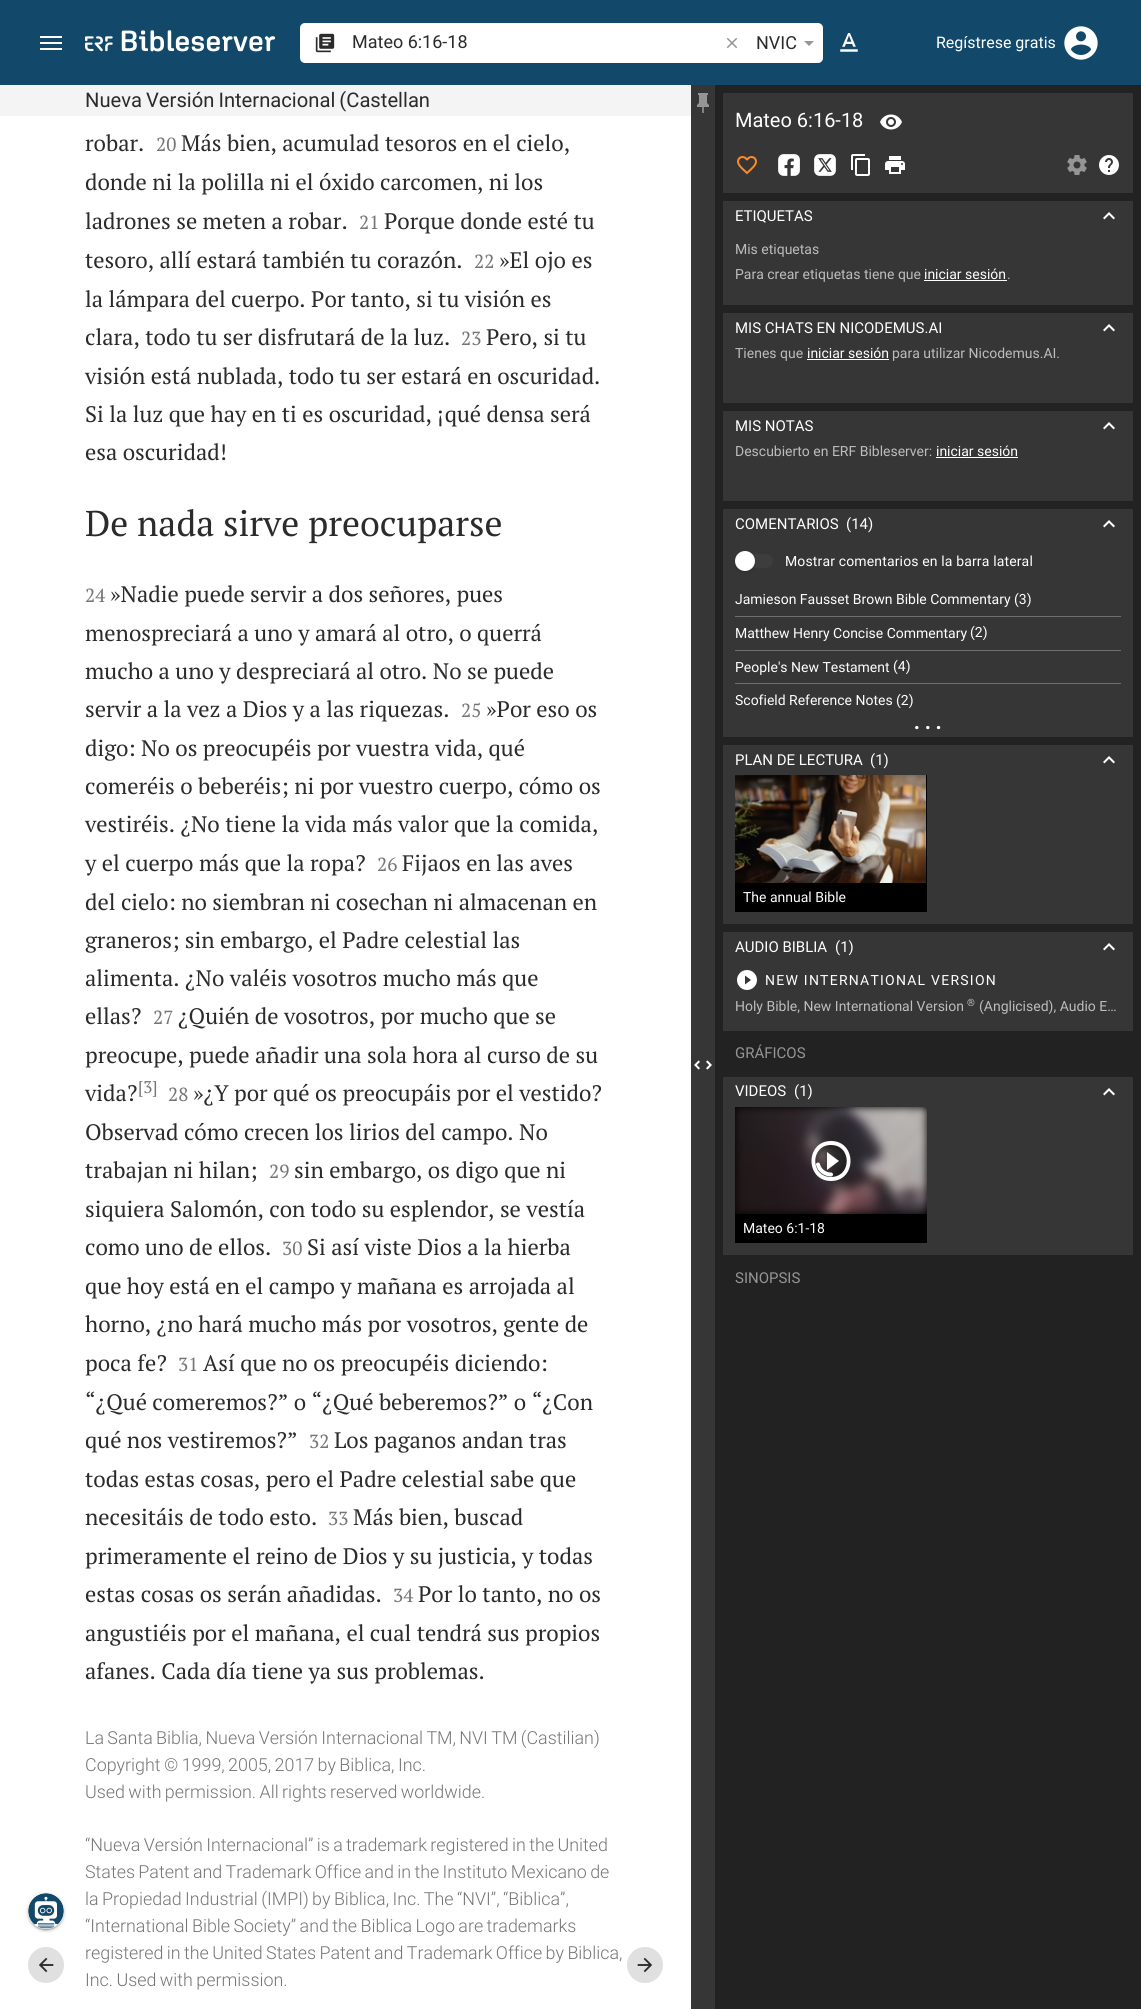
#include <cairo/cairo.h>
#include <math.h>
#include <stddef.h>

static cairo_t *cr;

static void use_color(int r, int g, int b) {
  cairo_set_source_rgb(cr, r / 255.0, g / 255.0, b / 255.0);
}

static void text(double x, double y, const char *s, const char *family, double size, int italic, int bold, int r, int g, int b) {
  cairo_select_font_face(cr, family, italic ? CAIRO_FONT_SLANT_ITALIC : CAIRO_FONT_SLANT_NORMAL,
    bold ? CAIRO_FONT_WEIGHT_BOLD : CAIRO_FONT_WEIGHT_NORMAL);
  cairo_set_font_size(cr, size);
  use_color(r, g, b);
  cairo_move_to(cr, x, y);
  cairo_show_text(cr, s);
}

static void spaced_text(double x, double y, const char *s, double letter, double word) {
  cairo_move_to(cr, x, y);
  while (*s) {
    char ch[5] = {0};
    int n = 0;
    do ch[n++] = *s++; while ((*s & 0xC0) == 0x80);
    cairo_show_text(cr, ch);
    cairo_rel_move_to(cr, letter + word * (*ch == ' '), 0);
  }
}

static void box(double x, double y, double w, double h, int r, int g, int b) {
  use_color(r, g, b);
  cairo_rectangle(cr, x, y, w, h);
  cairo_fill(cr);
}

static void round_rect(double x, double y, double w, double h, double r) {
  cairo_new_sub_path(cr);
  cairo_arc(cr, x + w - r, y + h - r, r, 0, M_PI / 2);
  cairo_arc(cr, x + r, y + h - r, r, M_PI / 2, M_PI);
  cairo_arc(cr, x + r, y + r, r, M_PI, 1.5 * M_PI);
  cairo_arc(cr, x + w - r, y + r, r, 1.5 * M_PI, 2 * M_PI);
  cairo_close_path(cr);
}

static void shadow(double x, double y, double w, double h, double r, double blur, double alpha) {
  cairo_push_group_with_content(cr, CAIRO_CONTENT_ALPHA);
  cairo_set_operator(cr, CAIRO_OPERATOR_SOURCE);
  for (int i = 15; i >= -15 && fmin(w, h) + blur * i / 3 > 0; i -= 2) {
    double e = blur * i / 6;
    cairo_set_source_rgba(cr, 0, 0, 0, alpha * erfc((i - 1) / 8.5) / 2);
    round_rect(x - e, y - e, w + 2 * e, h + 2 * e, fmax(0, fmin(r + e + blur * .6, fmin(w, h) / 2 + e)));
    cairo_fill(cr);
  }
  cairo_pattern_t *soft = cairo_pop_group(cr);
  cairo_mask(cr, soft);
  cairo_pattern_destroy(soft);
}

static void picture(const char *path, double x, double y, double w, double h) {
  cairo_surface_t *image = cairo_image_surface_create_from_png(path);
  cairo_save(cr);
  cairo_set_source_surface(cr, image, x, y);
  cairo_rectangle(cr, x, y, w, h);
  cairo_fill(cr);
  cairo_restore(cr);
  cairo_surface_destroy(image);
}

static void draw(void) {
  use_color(255, 255, 255);
  cairo_paint(cr);
  box(0, 0, 1141, 85, 18, 73, 106);
  box(40, 36, 22, 2, 255, 255, 255);
  box(40, 42, 22, 2, 255, 255, 255);
  box(40, 48, 22, 2, 255, 255, 255);
  picture("img_01.png", 85, 30, 190, 22);
  round_rect(300, 23, 523, 40, 5);
  cairo_fill(cr);
  picture("img_02.png", 315, 33, 20, 20);
  picture("img_03.png", 726, 37, 12, 12);
  use_color(149, 149, 149);
  cairo_new_path(cr);
  cairo_move_to(cr, 804, 41);
  cairo_line_to(cr, 809, 46);
  cairo_line_to(cr, 814, 41);
  cairo_close_path(cr);
  cairo_fill(cr);
  picture("img_04.png", 840, 33, 18, 19);
  picture("img_05.png", 1064, 26, 34, 34);
  use_color(0, 0, 0);
  shadow(28, 1894, 36, 36, 18, 2.5, 0.12);
  shadow(28, 1895, 36, 36, 18, 1, 0.14);
  shadow(30, 1898, 32, 32, 16, 0.5, 0.2);
  use_color(255, 255, 255);
  cairo_arc(cr, 46, 1911, 18, 0, 2 * M_PI);
  cairo_fill(cr);
  picture("img_06.png", 28, 1893, 36, 36);
  box(0, 85, 691, 31, 244, 244, 244);
  use_color(224, 224, 224);
  cairo_arc(cr, 46, 1965, 18, 0, 2 * M_PI);
  cairo_fill(cr);
  picture("img_07.png", 39, 1957, 15, 16);
  cairo_arc(cr, 645, 1965, 18, 0, 2 * M_PI);
  cairo_fill(cr);
  picture("img_08.png", 637, 1957, 15, 16);
  box(691, 85, 24, 1924, 54, 54, 54);
  picture("img_09.png", 697, 93, 12, 20);
  picture("img_10.png", 694, 1060, 18, 10);
  box(715, 85, 426, 1924, 34, 34, 34);
  box(723, 93, 410, 100, 54, 54, 54);
  picture("img_11.png", 880, 114, 22, 16);
  picture("img_12.png", 737, 156, 20, 19);
  picture("img_13.png", 778, 154, 22, 22);
  picture("img_14.png", 814, 154, 22, 22);
  picture("img_15.png", 851, 154, 19, 22);
  picture("img_16.png", 885, 156, 20, 18);
  picture("img_17.png", 1067, 155, 20, 20);
  picture("img_18.png", 1099, 155, 20, 20);
  box(723, 201, 410, 104, 54, 54, 54);
  picture("img_19.png", 1103, 212, 12, 8);
  box(924, 280, 83, 1, 255, 255, 255);
  box(723, 313, 410, 90, 54, 54, 54);
  picture("img_19.png", 1103, 324, 12, 8);
  box(807, 359, 82, 1, 255, 255, 255);
  box(723, 411, 410, 90, 54, 54, 54);
  picture("img_19.png", 1103, 422, 12, 8);
  box(936, 457, 82, 1, 255, 255, 255);
  box(723, 509, 410, 228, 54, 54, 54);
  picture("img_19.png", 1103, 520, 12, 8);
  use_color(61, 61, 61);
  round_rect(737, 554, 36, 14, 7);
  cairo_fill(cr);
  use_color(0, 0, 0);
  shadow(736, 554, 18, 18, 9, 2, 0.2);
  use_color(255, 255, 255);
  cairo_arc(cr, 745, 561, 10, 0, 2 * M_PI);
  cairo_fill(cr);
  box(735, 616, 386, 1, 111, 111, 111);
  box(735, 650, 386, 1, 111, 111, 111);
  box(735, 683, 386, 1, 111, 111, 111);
  box(723, 745, 410, 179, 54, 54, 54);
  picture("img_19.png", 1103, 756, 12, 8);
  box(735, 775, 192, 137, 0, 0, 0);
  picture("img_20.png", 735, 775, 191, 108);
  box(723, 932, 410, 99, 54, 54, 54);
  picture("img_19.png", 1103, 943, 12, 8);
  picture("img_21.png", 737, 970, 20, 20);
  box(723, 1077, 410, 178, 54, 54, 54);
  picture("img_19.png", 1103, 1088, 12, 8);
  box(735, 1107, 192, 136, 0, 0, 0);
  picture("img_22.png", 735, 1107, 192, 107);
  cairo_new_path(cr);
  cairo_move_to(cr, 817, 1160.5);
  cairo_curve_to(cr, 817, 1142, 845, 1142, 845, 1160.5);
  cairo_curve_to(cr, 845, 1178.5, 817, 1178.5, 817, 1160.5);
  cairo_set_source_rgba(cr, 0, 0, 0, 0.12);
  cairo_set_line_width(cr, 4);
  cairo_stroke(cr);
  cairo_save(cr);
  cairo_new_path(cr);
  cairo_move_to(cr, 815, 1176.5);
  cairo_line_to(cr, 815, 1144.5);
  cairo_line_to(cr, 847, 1144.5);
  cairo_line_to(cr, 847, 1176.5);
  cairo_close_path(cr);
  cairo_clip(cr);
  cairo_new_path(cr);
  cairo_move_to(cr, 831, 1174.5);
  cairo_curve_to(cr, 825, 1174.5, 819.5, 1170.5, 818, 1164.5);
  use_color(255, 255, 255);
  cairo_set_line_cap(cr, CAIRO_LINE_CAP_ROUND);
  cairo_stroke(cr);
  cairo_restore(cr);
  use_color(255, 255, 255);
  cairo_new_path(cr);
  cairo_move_to(cr, 831, 1177);
  cairo_curve_to(cr, 810, 1177, 810, 1145, 831, 1145);
  cairo_curve_to(cr, 852, 1145, 852, 1177, 831, 1177);
  cairo_move_to(cr, 831, 1141);
  cairo_curve_to(cr, 805, 1141, 805, 1181, 831, 1181);
  cairo_curve_to(cr, 857, 1181, 857, 1141, 831, 1141);
  cairo_move_to(cr, 827, 1170);
  cairo_line_to(cr, 839, 1161);
  cairo_line_to(cr, 827, 1152);
  cairo_close_path(cr);
  cairo_fill(cr);
  text(352, 48, "Mateo 6:16-18", "Roboto", 18, 0, 0, 43, 43, 43);
  text(756, 49, "NVIC", "Roboto", 18, 0, 0, 43, 43, 43);
  text(936, 48, "Regístrese gratis", "Roboto", 16, 0, 0, 255, 255, 255);
  cairo_set_font_size(cr, 20.2);
  use_color(43, 43, 43);
  spaced_text(85, 107, "Nueva Versión Internacional (Castellan", 0, -1);
  text(85, 151, "robar.", "PT Serif", 22.4, 0, 0, 43, 43, 43);
  text(156, 151, "20", "PT Serif", 19, 0, 0, 117, 117, 117);
  text(181, 151, "Más bien, acumulad tesoros en el cielo,", "PT Serif", 22.4, 0, 0, 43, 43, 43);
  text(85, 190, "donde ni la polilla ni el óxido carcomen, ni los", "PT Serif", 22.4, 0, 0, 43, 43, 43);
  text(85, 229, "ladrones se meten a robar.", "PT Serif", 22.4, 0, 0, 43, 43, 43);
  text(359, 229, "21", "PT Serif", 19, 0, 0, 117, 117, 117);
  text(384, 229, "Porque donde esté tu", "PT Serif", 22.4, 0, 0, 43, 43, 43);
  text(85, 268, "tesoro, allí estará también tu corazón.", "PT Serif", 22.4, 0, 0, 43, 43, 43);
  text(474, 268, "22", "PT Serif", 19, 0, 0, 117, 117, 117);
  text(499, 268, "»El ojo es", "PT Serif", 22.4, 0, 0, 43, 43, 43);
  text(85, 307, "la lámpara del cuerpo. Por tanto, si tu visión es", "PT Serif", 22.4, 0, 0, 43, 43, 43);
  text(85, 345, "clara, todo tu ser disfrutará de la luz.", "PT Serif", 22.4, 0, 0, 43, 43, 43);
  text(461, 345, "23", "PT Serif", 19, 0, 0, 117, 117, 117);
  text(486, 345, "Pero, si tu", "PT Serif", 22.4, 0, 0, 43, 43, 43);
  text(85, 384, "visión está nublada, todo tu ser estará en oscuridad.", "PT Serif", 22.4, 0, 0, 43, 43, 43);
  text(85, 422, "Si la luz que hay en ti es oscuridad, ¡qué densa será", "PT Serif", 22.4, 0, 0, 43, 43, 43);
  text(85, 460, "esa oscuridad!", "PT Serif", 22.4, 0, 0, 43, 43, 43);
  text(85, 536, "De nada sirve preocuparse", "PT Serif", 35.8, 0, 0, 43, 43, 43);
  text(85, 602, "24", "PT Serif", 19, 0, 0, 117, 117, 117);
  text(110, 602, "»Nadie puede servir a dos señores, pues", "PT Serif", 22.4, 0, 0, 43, 43, 43);
  text(85, 641, "menospreciará a uno y amará al otro, o querrá", "PT Serif", 22.4, 0, 0, 43, 43, 43);
  text(85, 679, "mucho a uno y despreciará al otro. No se puede", "PT Serif", 22.4, 0, 0, 43, 43, 43);
  text(85, 717, "servir a la vez a Dios y a las riquezas.", "PT Serif", 22.4, 0, 0, 43, 43, 43);
  text(461, 717, "25", "PT Serif", 19, 0, 0, 117, 117, 117);
  text(486, 717, "»Por eso os", "PT Serif", 22.4, 0, 0, 43, 43, 43);
  text(85, 756, "digo: No os preocupéis por vuestra vida, qué", "PT Serif", 22.4, 0, 0, 43, 43, 43);
  text(85, 794, "comeréis o beberéis; ni por vuestro cuerpo, cómo os", "PT Serif", 22.4, 0, 0, 43, 43, 43);
  text(85, 832, "vestiréis. ¿No tiene la vida más valor que la comida,", "PT Serif", 22.4, 0, 0, 43, 43, 43);
  text(85, 871, "y el cuerpo más que la ropa?", "PT Serif", 22.4, 0, 0, 43, 43, 43);
  text(377, 871, "26", "PT Serif", 19, 0, 0, 117, 117, 117);
  text(402, 871, "Fijaos en las aves", "PT Serif", 22.4, 0, 0, 43, 43, 43);
  text(85, 910, "del cielo: no siembran ni cosechan ni almacenan en", "PT Serif", 22.4, 0, 0, 43, 43, 43);
  text(85, 948, "graneros; sin embargo, el Padre celestial las", "PT Serif", 22.4, 0, 0, 43, 43, 43);
  text(85, 986, "alimenta. ¿No valéis vosotros mucho más que", "PT Serif", 22.4, 0, 0, 43, 43, 43);
  text(85, 1024, "ellas?", "PT Serif", 22.4, 0, 0, 43, 43, 43);
  text(153, 1024, "27", "PT Serif", 19, 0, 0, 117, 117, 117);
  text(178, 1024, "¿Quién de vosotros, por mucho que se", "PT Serif", 22.4, 0, 0, 43, 43, 43);
  text(85, 1063, "preocupe, puede añadir una sola hora al curso de su", "PT Serif", 22.4, 0, 0, 43, 43, 43);
  text(85, 1101, "vida?", "PT Serif", 22.4, 0, 0, 43, 43, 43);
  text(138, 1093, "[3]", "PT Serif", 17, 0, 0, 117, 117, 117);
  text(168, 1101, "28", "PT Serif", 19, 0, 0, 117, 117, 117);
  text(193, 1101, "»¿Y por qué os preocupáis por el vestido?", "PT Serif", 22.4, 0, 0, 43, 43, 43);
  text(85, 1140, "Observad cómo crecen los lirios del campo. No", "PT Serif", 22.4, 0, 0, 43, 43, 43);
  text(85, 1178, "trabajan ni hilan;", "PT Serif", 22.4, 0, 0, 43, 43, 43);
  text(269, 1178, "29", "PT Serif", 19, 0, 0, 117, 117, 117);
  text(294, 1178, "sin embargo, os digo que ni", "PT Serif", 22.4, 0, 0, 43, 43, 43);
  text(85, 1217, "siquiera Salomón, con todo su esplendor, se vestía", "PT Serif", 22.4, 0, 0, 43, 43, 43);
  text(85, 1255, "como uno de ellos.", "PT Serif", 22.4, 0, 0, 43, 43, 43);
  text(282, 1255, "30", "PT Serif", 19, 0, 0, 117, 117, 117);
  text(307, 1255, "Si así viste Dios a la hierba", "PT Serif", 22.4, 0, 0, 43, 43, 43);
  text(85, 1294, "que hoy está en el campo y mañana es arrojada al", "PT Serif", 22.4, 0, 0, 43, 43, 43);
  text(85, 1332, "horno, ¿no hará mucho más por vosotros, gente de", "PT Serif", 22.4, 0, 0, 43, 43, 43);
  text(85, 1371, "poca fe?", "PT Serif", 22.4, 0, 0, 43, 43, 43);
  text(178, 1371, "31", "PT Serif", 19, 0, 0, 117, 117, 117);
  text(203, 1371, "Así que no os preocupéis diciendo:", "PT Serif", 22.4, 0, 0, 43, 43, 43);
  text(85, 1410, "“¿Qué comeremos?” o “¿Qué beberemos?” o “¿Con", "PT Serif", 22.4, 0, 0, 43, 43, 43);
  text(85, 1448, "qué nos vestiremos?”", "PT Serif", 22.4, 0, 0, 43, 43, 43);
  text(309, 1448, "32", "PT Serif", 19, 0, 0, 117, 117, 117);
  text(334, 1448, "Los paganos andan tras", "PT Serif", 22.4, 0, 0, 43, 43, 43);
  text(85, 1487, "todas estas cosas, pero el Padre celestial sabe que", "PT Serif", 22.4, 0, 0, 43, 43, 43);
  text(85, 1525, "necesitáis de todo esto.", "PT Serif", 22.4, 0, 0, 43, 43, 43);
  text(328, 1525, "33", "PT Serif", 19, 0, 0, 117, 117, 117);
  text(353, 1525, "Más bien, buscad", "PT Serif", 22.4, 0, 0, 43, 43, 43);
  text(85, 1564, "primeramente el reino de Dios y su justicia, y todas", "PT Serif", 22.4, 0, 0, 43, 43, 43);
  text(85, 1602, "estas cosas os serán añadidas.", "PT Serif", 22.4, 0, 0, 43, 43, 43);
  text(393, 1602, "34", "PT Serif", 19, 0, 0, 117, 117, 117);
  text(418, 1602, "Por lo tanto, no os", "PT Serif", 22.4, 0, 0, 43, 43, 43);
  text(85, 1641, "angustiéis por el mañana, el cual tendrá sus propios", "PT Serif", 22.4, 0, 0, 43, 43, 43);
  text(85, 1679, "afanes. Cada día tiene ya sus problemas.", "PT Serif", 22.4, 0, 0, 43, 43, 43);
  cairo_select_font_face(cr, "Roboto Light", CAIRO_FONT_SLANT_NORMAL, CAIRO_FONT_WEIGHT_NORMAL);
  cairo_set_font_size(cr, 17.9);
  use_color(117, 117, 117);
  spaced_text(85, 1744, "La Santa Biblia, Nueva Versión Internacional TM, NVI TM (Castilian)", 0, -1);
  spaced_text(85, 1771, "Copyright © 1999, 2005, 2017 by Biblica, Inc.", 0, -1);
  spaced_text(85, 1798, "Used with permission. All rights reserved worldwide.", 0, -1);
  spaced_text(85, 1851, "“Nueva Versión Internacional” is a trademark registered in the United", 0, -1);
  spaced_text(85, 1878, "States Patent and Trademark Office and in the Instituto Mexicano de", 0, -1);
  spaced_text(85, 1905, "la Propiedad Industrial (IMPI) by Biblica, Inc. The “NVI”, “Biblica”,", 0, -1);
  spaced_text(85, 1932, "“International Bible Society” and the Biblica Logo are trademarks", 0, -1);
  spaced_text(85, 1959, "registered in the United States Patent and Trademark Office by Biblica,", 0, -1);
  spaced_text(85, 1986, "Inc. Used with permission.", 0, -1);
  text(735, 127, "Mateo 6:16-18", "Roboto", 20, 0, 0, 255, 255, 255);
  text(735, 221, "ETIQUETAS", "Roboto", 15, 0, 0, 255, 255, 255);
  text(735, 254, "Mis etiquetas", "Roboto", 14, 0, 0, 189, 189, 189);
  text(735, 279, "Para crear etiquetas tiene que", "Roboto", 14, 0, 0, 189, 189, 189);
  text(924, 279, "iniciar sesión", "Roboto", 14, 0, 0, 255, 255, 255);
  text(1007, 279, ".", "Roboto", 14, 0, 0, 189, 189, 189);
  text(735, 333, "MIS CHATS EN NICODEMUS.AI", "Roboto", 15, 0, 0, 255, 255, 255);
  text(735, 358, "Tienes que", "Roboto", 14, 0, 0, 189, 189, 189);
  text(807, 358, "iniciar sesión", "Roboto", 14, 0, 0, 255, 255, 255);
  text(892, 358, "para utilizar Nicodemus.AI.", "Roboto", 14, 0, 0, 189, 189, 189);
  text(735, 431, "MIS NOTAS", "Roboto", 15, 0, 0, 255, 255, 255);
  text(735, 456, "Descubierto en ERF Bibleserver:", "Roboto", 14, 0, 0, 189, 189, 189);
  text(936, 456, "iniciar sesión", "Roboto", 14, 0, 0, 255, 255, 255);
  text(735, 529, "COMENTARIOS", "Roboto", 15, 0, 0, 255, 255, 255);
  text(846, 529, "(14)", "Roboto", 15, 0, 0, 255, 255, 255);
  cairo_set_font_size(cr, 14);
  spaced_text(785, 566, "Mostrar comentarios en la barra lateral", 0.15, 0);
  text(735, 604, "Jamieson Fausset Brown Bible Commentary", "Roboto", 14, 0, 0, 255, 255, 255);
  text(1014, 604, "(3)", "Roboto", 14, 0, 0, 255, 255, 255);
  text(735, 638, "Matthew Henry Concise Commentary", "Roboto", 14, 0, 0, 255, 255, 255);
  text(970, 637, "(2)", "Roboto", 14, 0, 0, 255, 255, 255);
  text(735, 672, "People's New Testament", "Roboto", 14, 0, 0, 255, 255, 255);
  text(893, 671, "(4)", "Roboto", 14, 0, 0, 255, 255, 255);
  text(735, 705, "Scofield Reference Notes", "Roboto", 14, 0, 0, 255, 255, 255);
  text(896, 705, "(2)", "Roboto", 14, 0, 0, 255, 255, 255);
  cairo_set_font_size(cr, 30);
  spaced_text(913, 729, "...", 3, 0);
  text(735, 765, "PLAN DE LECTURA", "Roboto", 15, 0, 0, 255, 255, 255);
  text(870, 765, "(1)", "Roboto", 15, 0, 0, 255, 255, 255);
  text(743, 902, "The annual Bible", "Roboto", 14, 0, 0, 255, 255, 255);
  text(735, 952, "AUDIO BIBLIA", "Roboto", 15, 0, 0, 255, 255, 255);
  text(835, 952, "(1)", "Roboto", 15, 0, 0, 255, 255, 255);
  cairo_set_font_size(cr, 14);
  spaced_text(765, 985, "NEW INTERNATIONAL VERSION", 1.25, 0);
  text(735, 1011, "Holy Bible, New International Version", "Roboto", 14, 0, 0, 189, 189, 189);
  text(967, 1006, "®", "Roboto", 10, 0, 0, 189, 189, 189);
  text(979, 1011, "(Anglicised), Audio E…", "Roboto", 14, 0, 0, 189, 189, 189);
  text(735, 1058, "GRÁFICOS", "Roboto", 15, 0, 0, 149, 149, 149);
  text(735, 1096, "VIDEOS", "Roboto", 15, 0, 0, 255, 255, 255);
  text(794, 1096, "(1)", "Roboto", 15, 0, 0, 255, 255, 255);
  text(743, 1233, "Mateo 6:1-18", "Roboto", 14, 0, 0, 255, 255, 255);
  text(735, 1283, "SINOPSIS", "Roboto", 15, 0, 0, 149, 149, 149);
}

int main(void) {
  cairo_surface_t *surface = cairo_image_surface_create(CAIRO_FORMAT_RGB24, 1141, 2009);
  cr = cairo_create(surface);
  cairo_font_options_t *options = cairo_font_options_create();
  cairo_font_options_set_hint_metrics(options, CAIRO_HINT_METRICS_OFF);
  cairo_font_options_set_hint_style(options, CAIRO_HINT_STYLE_NONE);
  cairo_set_font_options(cr, options);
  cairo_set_miter_limit(cr, 4);
  draw();
  cairo_surface_write_to_png(surface, "out.png");
  cairo_font_options_destroy(options);
  cairo_destroy(cr);
  cairo_surface_destroy(surface);
  return 0;
}
